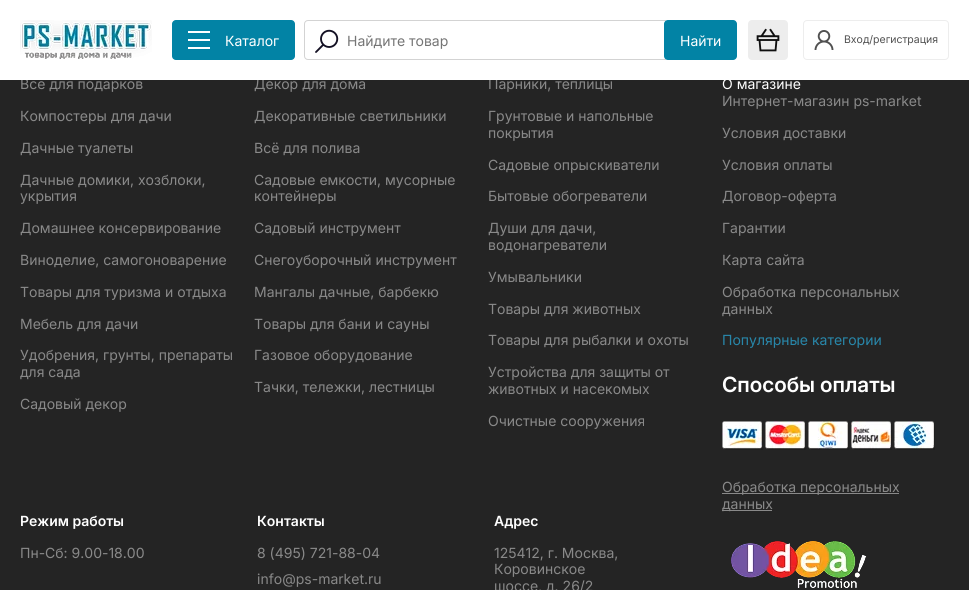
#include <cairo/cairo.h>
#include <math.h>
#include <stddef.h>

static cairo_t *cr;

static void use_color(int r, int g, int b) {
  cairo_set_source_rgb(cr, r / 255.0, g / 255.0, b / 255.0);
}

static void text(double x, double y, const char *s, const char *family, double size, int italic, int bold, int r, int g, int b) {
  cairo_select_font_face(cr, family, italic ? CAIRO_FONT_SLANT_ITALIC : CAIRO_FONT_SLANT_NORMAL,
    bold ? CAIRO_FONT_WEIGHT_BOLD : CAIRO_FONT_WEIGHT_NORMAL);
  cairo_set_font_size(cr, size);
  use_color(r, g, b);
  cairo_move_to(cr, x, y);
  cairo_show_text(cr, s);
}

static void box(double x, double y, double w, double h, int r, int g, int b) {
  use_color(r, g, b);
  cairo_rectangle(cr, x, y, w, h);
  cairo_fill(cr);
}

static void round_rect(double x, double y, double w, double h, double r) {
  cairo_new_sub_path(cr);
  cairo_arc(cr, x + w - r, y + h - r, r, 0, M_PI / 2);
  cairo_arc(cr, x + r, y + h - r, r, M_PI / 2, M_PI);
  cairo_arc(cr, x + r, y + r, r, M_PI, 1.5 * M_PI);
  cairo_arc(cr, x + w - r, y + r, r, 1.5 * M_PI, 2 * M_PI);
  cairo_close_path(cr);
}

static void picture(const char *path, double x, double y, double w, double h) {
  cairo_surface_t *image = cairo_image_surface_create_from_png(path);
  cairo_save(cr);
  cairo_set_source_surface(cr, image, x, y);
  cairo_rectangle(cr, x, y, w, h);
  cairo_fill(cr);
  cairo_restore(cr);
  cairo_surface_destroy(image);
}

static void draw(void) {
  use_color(36, 36, 36);
  cairo_paint(cr);
  picture("img_05.png", 722, 421, 213, 29);
  box(722, 493, 177, 1, 137, 137, 137);
  box(722, 510, 50, 1, 137, 137, 137);
  picture("img_06.png", 731, 541, 136, 47);
  text(20, 89, "Все для подарков", "Inter", 14, 0, 0, 137, 137, 137);
  text(20, 121, "Компостеры для дачи", "Inter", 14, 0, 0, 137, 137, 137);
  text(20, 153, "Дачные туалеты", "Inter", 14, 0, 0, 137, 137, 137);
  text(20, 185, "Дачные домики, хозблоки,", "Inter", 14, 0, 0, 137, 137, 137);
  text(20, 201, "укрытия", "Inter", 14, 0, 0, 137, 137, 137);
  text(20, 233, "Домашнее консервирование", "Inter", 14, 0, 0, 137, 137, 137);
  text(20, 265, "Виноделие, самогоноварение", "Inter", 14, 0, 0, 137, 137, 137);
  text(20, 297, "Товары для туризма и отдыха", "Inter", 14, 0, 0, 137, 137, 137);
  text(20, 329, "Мебель для дачи", "Inter", 14, 0, 0, 137, 137, 137);
  text(20, 360, "Удобрения, грунты, препараты", "Inter", 14, 0, 0, 137, 137, 137);
  text(20, 377, "для сада", "Inter", 14, 0, 0, 137, 137, 137);
  text(20, 409, "Садовый декор", "Inter", 14, 0, 0, 137, 137, 137);
  text(254, 89, "Декор для дома", "Inter", 14, 0, 0, 137, 137, 137);
  text(254, 121, "Декоративные светильники", "Inter", 14, 0, 0, 137, 137, 137);
  text(254, 153, "Всё для полива", "Inter", 14, 0, 0, 137, 137, 137);
  text(254, 185, "Садовые емкости, мусорные", "Inter", 14, 0, 0, 137, 137, 137);
  text(254, 201, "контейнеры", "Inter", 14, 0, 0, 137, 137, 137);
  text(254, 233, "Садовый инструмент", "Inter", 14, 0, 0, 137, 137, 137);
  text(254, 265, "Снегоуборочный инструмент", "Inter", 14, 0, 0, 137, 137, 137);
  text(254, 297, "Мангалы дачные, барбекю", "Inter", 14, 0, 0, 137, 137, 137);
  text(254, 329, "Товары для бани и сауны", "Inter", 14, 0, 0, 137, 137, 137);
  text(254, 360, "Газовое оборудование", "Inter", 14, 0, 0, 137, 137, 137);
  text(254, 392, "Тачки, тележки, лестницы", "Inter", 14, 0, 0, 137, 137, 137);
  text(488, 89, "Парники, теплицы", "Inter", 14, 0, 0, 137, 137, 137);
  box(0, 0, 969, 80, 255, 255, 255);
  use_color(237, 237, 237);
  round_rect(748, 20, 40, 40, 4);
  cairo_fill(cr);
  picture("img_03.png", 756, 28, 24, 24);
  cairo_new_path(cr);
  cairo_move_to(cr, 308, 20.5);
  cairo_line_to(cr, 665.5, 20.5);
  cairo_line_to(cr, 665.5, 59.5);
  cairo_line_to(cr, 308, 59.5);
  cairo_curve_to(cr, 306, 59.5, 304.5, 58, 304.5, 56);
  cairo_line_to(cr, 304.5, 24);
  cairo_curve_to(cr, 304.5, 22, 306, 20.5, 308, 20.5);
  cairo_close_path(cr);
  use_color(211, 211, 211);
  cairo_set_line_width(cr, 1);
  cairo_stroke(cr);
  use_color(2, 131, 165);
  round_rect(664, 20, 73, 40, 4);
  cairo_fill(cr);
  text(680, 46, "Найти", "Inter", 14, 0, 0, 255, 255, 255);
  picture("img_02.png", 315, 29, 24, 24);
  text(347, 46, "Найдите товар", "Inter", 14, 0, 0, 117, 117, 117);
  use_color(2, 131, 165);
  round_rect(172, 20, 123, 40, 4);
  cairo_fill(cr);
  box(188, 47, 22, 2, 255, 255, 255);
  box(188, 39, 22, 2, 255, 255, 255);
  box(188, 31, 22, 2, 255, 255, 255);
  round_rect(803.5, 20.5, 145, 39, 3.5);
  use_color(237, 237, 237);
  cairo_stroke(cr);
  text(844, 43, "Вход/регистрация", "Inter", 10.5, 0, 0, 80, 80, 80);
  picture("img_04.png", 814, 30, 20, 20);
  text(225, 46, "Каталог", "Inter", 14, 0, 0, 255, 255, 255);
  picture("img_01.png", 20, 20, 132, 39);
  text(488, 121, "Грунтовые и напольные", "Inter", 14, 0, 0, 137, 137, 137);
  text(488, 138, "покрытия", "Inter", 14, 0, 0, 137, 137, 137);
  text(488, 170, "Садовые опрыскиватели", "Inter", 14, 0, 0, 137, 137, 137);
  text(488, 201, "Бытовые обогреватели", "Inter", 14, 0, 0, 137, 137, 137);
  text(488, 233, "Души для дачи,", "Inter", 14, 0, 0, 137, 137, 137);
  text(488, 250, "водонагреватели", "Inter", 14, 0, 0, 137, 137, 137);
  text(488, 282, "Умывальники", "Inter", 14, 0, 0, 137, 137, 137);
  text(488, 314, "Товары для животных", "Inter", 14, 0, 0, 137, 137, 137);
  text(488, 345, "Товары для рыбалки и охоты", "Inter", 14, 0, 0, 137, 137, 137);
  text(488, 377, "Устройства для защиты от", "Inter", 14, 0, 0, 137, 137, 137);
  text(488, 394, "животных и насекомых", "Inter", 14, 0, 0, 137, 137, 137);
  text(488, 426, "Очистные сооружения", "Inter", 14, 0, 0, 137, 137, 137);
  text(722, 89, "О магазине", "Inter", 14, 0, 0, 255, 255, 255);
  text(722, 106, "Интернет-магазин ps-market", "Inter", 14, 0, 0, 137, 137, 137);
  text(722, 138, "Условия доставки", "Inter", 14, 0, 0, 137, 137, 137);
  text(722, 170, "Условия оплаты", "Inter", 14, 0, 0, 137, 137, 137);
  text(722, 201, "Договор-оферта", "Inter", 14, 0, 0, 137, 137, 137);
  text(722, 233, "Гарантии", "Inter", 14, 0, 0, 137, 137, 137);
  text(722, 265, "Карта сайта", "Inter", 14, 0, 0, 137, 137, 137);
  text(722, 297, "Обработка персональных", "Inter", 14, 0, 0, 137, 137, 137);
  text(722, 314, "данных", "Inter", 14, 0, 0, 137, 137, 137);
  text(722, 345, "Популярные категории", "Inter", 14, 0, 0, 40, 135, 170);
  text(722, 392, "Способы оплаты", "Inter SemiBold", 21, 0, 0, 255, 255, 255);
  text(722, 492, "Обработка персональных", "Inter", 14, 0, 0, 137, 137, 137);
  text(722, 509, "данных", "Inter", 14, 0, 0, 137, 137, 137);
  text(20, 526, "Режим работы", "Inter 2 SemiBold", 14, 0, 0, 255, 255, 255);
  text(20, 558, "Пн-Сб: 9.00-18.00", "Inter", 14, 0, 0, 137, 137, 137);
  text(257, 526, "Контакты", "Inter 2 SemiBold", 14, 0, 0, 255, 255, 255);
  text(257, 558, "8 (495) 721-88-04", "Inter", 14, 0, 0, 137, 137, 137);
  text(257, 584, "info@ps-market.ru", "Inter", 14, 0, 0, 137, 137, 137);
  text(494, 526, "Адрес", "Inter 2 SemiBold", 14, 0, 0, 255, 255, 255);
  text(494, 558, "125412, г. Москва,", "Inter", 14, 0, 0, 137, 137, 137);
  text(494, 574, "Коровинское", "Inter", 14, 0, 0, 137, 137, 137);
  text(494, 591, "шоссе, д. 26/2", "Inter", 14, 0, 0, 137, 137, 137);
}

int main(void) {
  cairo_surface_t *surface = cairo_image_surface_create(CAIRO_FORMAT_RGB24, 969, 590);
  cr = cairo_create(surface);
  cairo_font_options_t *options = cairo_font_options_create();
  cairo_font_options_set_hint_metrics(options, CAIRO_HINT_METRICS_OFF);
  cairo_font_options_set_hint_style(options, CAIRO_HINT_STYLE_NONE);
  cairo_set_font_options(cr, options);
  cairo_set_miter_limit(cr, 4);
  draw();
  cairo_surface_write_to_png(surface, "out.png");
  cairo_font_options_destroy(options);
  cairo_destroy(cr);
  cairo_surface_destroy(surface);
  return 0;
}
